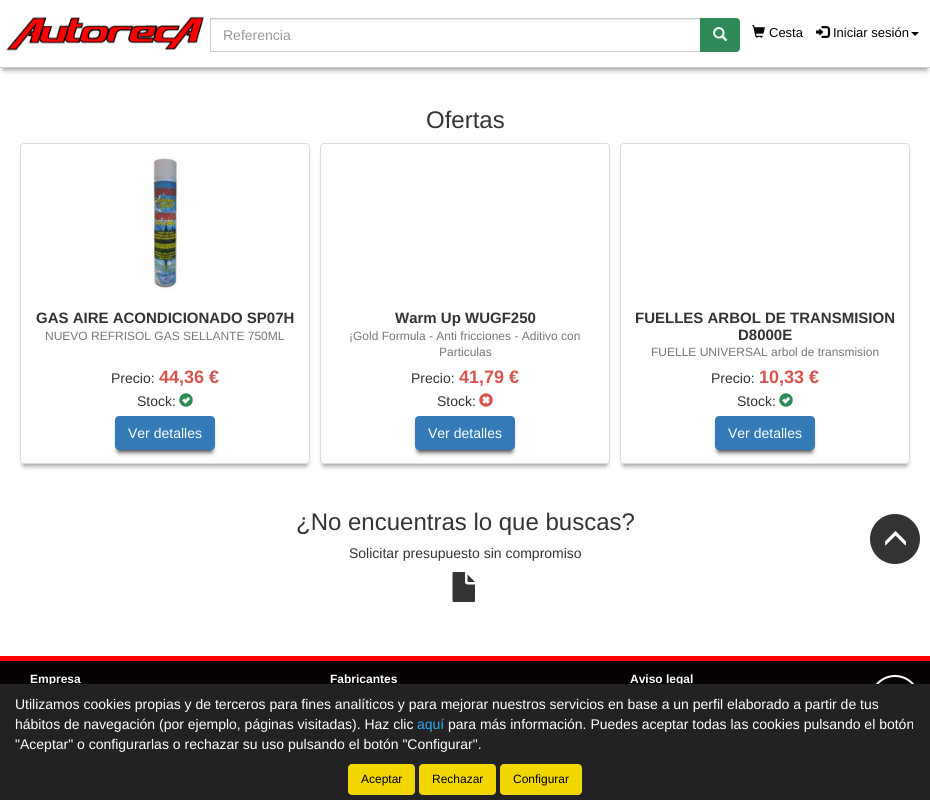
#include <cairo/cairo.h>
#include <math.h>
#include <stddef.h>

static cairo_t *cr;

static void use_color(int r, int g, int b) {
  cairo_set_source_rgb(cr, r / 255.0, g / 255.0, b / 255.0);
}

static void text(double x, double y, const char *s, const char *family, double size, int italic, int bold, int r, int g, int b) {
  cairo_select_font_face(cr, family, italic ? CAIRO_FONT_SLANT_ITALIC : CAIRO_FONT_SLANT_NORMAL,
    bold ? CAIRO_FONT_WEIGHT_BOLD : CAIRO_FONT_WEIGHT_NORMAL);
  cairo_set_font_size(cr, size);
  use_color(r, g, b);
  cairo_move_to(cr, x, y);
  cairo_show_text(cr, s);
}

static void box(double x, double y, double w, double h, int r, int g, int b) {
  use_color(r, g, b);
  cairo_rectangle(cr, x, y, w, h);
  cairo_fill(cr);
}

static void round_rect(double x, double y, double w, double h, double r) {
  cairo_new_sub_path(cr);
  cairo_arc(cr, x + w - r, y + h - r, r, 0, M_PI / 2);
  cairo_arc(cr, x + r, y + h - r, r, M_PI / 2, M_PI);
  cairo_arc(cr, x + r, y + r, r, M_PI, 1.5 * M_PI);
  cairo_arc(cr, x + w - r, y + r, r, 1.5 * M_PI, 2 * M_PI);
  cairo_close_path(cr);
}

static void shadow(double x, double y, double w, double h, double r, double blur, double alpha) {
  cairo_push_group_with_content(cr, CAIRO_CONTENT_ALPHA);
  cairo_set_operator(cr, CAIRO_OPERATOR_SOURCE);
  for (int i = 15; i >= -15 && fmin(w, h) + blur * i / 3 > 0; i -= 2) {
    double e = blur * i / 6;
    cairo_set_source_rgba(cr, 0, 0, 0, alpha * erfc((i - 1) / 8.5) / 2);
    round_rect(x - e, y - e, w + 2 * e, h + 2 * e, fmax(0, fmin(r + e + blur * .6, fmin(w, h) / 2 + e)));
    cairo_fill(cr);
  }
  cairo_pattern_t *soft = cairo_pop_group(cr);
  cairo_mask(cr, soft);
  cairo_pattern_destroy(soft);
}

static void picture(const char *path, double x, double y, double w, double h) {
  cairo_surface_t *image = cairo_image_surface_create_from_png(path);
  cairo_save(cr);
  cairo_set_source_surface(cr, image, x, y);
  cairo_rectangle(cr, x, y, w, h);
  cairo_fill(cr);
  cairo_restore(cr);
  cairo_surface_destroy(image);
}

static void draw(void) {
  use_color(255, 255, 255);
  cairo_paint(cr);
  use_color(0, 0, 0);
  shadow(3, 8, 924, 62, 0, 2.5, 0.4);
  box(0, 3, 930, 64, 255, 255, 255);
  box(0, 67, 930, 1, 204, 204, 204);
  picture("img_01.png", 6, 16, 198, 35);
  box(211, 19, 489, 1, 236, 236, 236);
  cairo_rectangle(cr, 210.5, 18.5, 490, 33);
  use_color(204, 204, 204);
  cairo_set_line_width(cr, 1);
  cairo_stroke(cr);
  use_color(46, 139, 87);
  cairo_new_path(cr);
  cairo_move_to(cr, 700.5, 18.5);
  cairo_line_to(cr, 736, 18.5);
  cairo_curve_to(cr, 738, 18.5, 739.5, 20, 739.5, 22);
  cairo_line_to(cr, 739.5, 48);
  cairo_curve_to(cr, 739.5, 50, 738, 51.5, 736, 51.5);
  cairo_line_to(cr, 700.5, 51.5);
  cairo_close_path(cr);
  cairo_fill_preserve(cr);
  cairo_stroke(cr);
  picture("img_02.png", 713, 27, 15, 14);
  picture("img_03.png", 752, 25, 13, 13);
  picture("img_04.png", 816, 26, 15, 12);
  use_color(6, 2, 2);
  cairo_new_path(cr);
  cairo_move_to(cr, 911, 32);
  cairo_line_to(cr, 919, 32);
  cairo_line_to(cr, 915, 36);
  cairo_close_path(cr);
  cairo_fill(cr);
  use_color(0, 0, 0);
  shadow(23, 151, 284, 315, 1, 2.5, 0.4);
  use_color(255, 255, 255);
  round_rect(20.5, 143.5, 289, 320, 3.5);
  cairo_fill_preserve(cr);
  use_color(221, 221, 221);
  cairo_stroke(cr);
  picture("img_05.png", 147, 158, 35, 132);
  picture("img_06.png", 179, 393, 14, 14);
  use_color(0, 0, 0);
  shadow(118, 424, 94, 28, 1, 2.5, 0.8);
  use_color(51, 122, 183);
  round_rect(115.5, 416.5, 99, 33, 3.5);
  cairo_fill_preserve(cr);
  cairo_stroke(cr);
  use_color(0, 0, 0);
  shadow(323, 151, 284, 315, 1, 2.5, 0.4);
  use_color(255, 255, 255);
  round_rect(320.5, 143.5, 289, 320, 3.5);
  cairo_fill_preserve(cr);
  use_color(221, 221, 221);
  cairo_stroke(cr);
  picture("img_07.png", 479, 393, 14, 14);
  use_color(0, 0, 0);
  shadow(418, 424, 94, 28, 1, 2.5, 0.8);
  use_color(51, 122, 183);
  round_rect(415.5, 416.5, 99, 33, 3.5);
  cairo_fill_preserve(cr);
  cairo_stroke(cr);
  use_color(0, 0, 0);
  shadow(623, 151, 284, 315, 1, 2.5, 0.4);
  use_color(255, 255, 255);
  round_rect(620.5, 143.5, 289, 320, 3.5);
  cairo_fill_preserve(cr);
  use_color(221, 221, 221);
  cairo_stroke(cr);
  picture("img_06.png", 779, 393, 14, 14);
  use_color(0, 0, 0);
  shadow(718, 424, 94, 28, 1, 2.5, 0.8);
  use_color(51, 122, 183);
  round_rect(715.5, 416.5, 99, 33, 3.5);
  cairo_fill_preserve(cr);
  cairo_stroke(cr);
  picture("img_08.png", 452, 572, 23, 30);
  use_color(51, 51, 51);
  cairo_arc(cr, 895, 539, 25, 0, 2 * M_PI);
  cairo_fill(cr);
  picture("img_09.png", 885, 531, 21, 15);
  box(0, 661, 930, 23, 6, 2, 2);
  box(0, 656, 930, 5, 254, 0, 0);
  cairo_arc(cr, 895, 700, 24, 0, 2 * M_PI);
  use_color(255, 255, 255);
  cairo_set_line_width(cr, 2);
  cairo_stroke(cr);
  text(223, 40, "Referencia", "Liberation Sans", 14, 0, 0, 153, 153, 153);
  text(769, 37, "Cesta", "Liberation Sans", 13, 0, 0, 6, 2, 2);
  text(833, 37, "Iniciar sesión", "Liberation Sans", 13, 0, 0, 6, 2, 2);
  text(426, 128, "Ofertas", "Liberation Sans", 24, 0, 0, 51, 51, 51);
  text(36, 323, "GAS AIRE ACONDICIONADO SP07H", "Liberation Sans", 15, 0, 1, 51, 51, 51);
  text(45, 340, "NUEVO REFRISOL GAS SELLANTE 750ML", "Liberation Sans", 12, 0, 0, 119, 119, 119);
  text(111, 383, "Precio:", "Liberation Sans", 14, 0, 0, 51, 51, 51);
  text(159, 383, "44,36 €", "Liberation Sans", 18, 0, 1, 217, 83, 79);
  text(137, 406, "Stock:", "Liberation Sans", 14, 0, 0, 51, 51, 51);
  text(128, 438, "Ver detalles", "Liberation Sans", 14, 0, 0, 255, 255, 255);
  text(395, 323, "Warm Up WUGF250", "Liberation Sans", 15, 0, 1, 51, 51, 51);
  text(349, 340, "¡Gold Formula - Anti fricciones - Aditivo con", "Liberation Sans", 12, 0, 0, 119, 119, 119);
  text(439, 356, "Particulas", "Liberation Sans", 12, 0, 0, 119, 119, 119);
  text(411, 383, "Precio:", "Liberation Sans", 14, 0, 0, 51, 51, 51);
  text(459, 383, "41,79 €", "Liberation Sans", 18, 0, 1, 217, 83, 79);
  text(437, 406, "Stock:", "Liberation Sans", 14, 0, 0, 51, 51, 51);
  text(428, 438, "Ver detalles", "Liberation Sans", 14, 0, 0, 255, 255, 255);
  text(635, 323, "FUELLES ARBOL DE TRANSMISION", "Liberation Sans", 15, 0, 1, 51, 51, 51);
  text(738, 340, "D8000E", "Liberation Sans", 15, 0, 1, 51, 51, 51);
  text(651, 356, "FUELLE UNIVERSAL arbol de transmision", "Liberation Sans", 12, 0, 0, 119, 119, 119);
  text(711, 383, "Precio:", "Liberation Sans", 14, 0, 0, 51, 51, 51);
  text(759, 383, "10,33 €", "Liberation Sans", 18, 0, 1, 217, 83, 79);
  text(737, 406, "Stock:", "Liberation Sans", 14, 0, 0, 51, 51, 51);
  text(728, 438, "Ver detalles", "Liberation Sans", 14, 0, 0, 255, 255, 255);
  text(296, 530, "¿No encuentras lo que buscas?", "Liberation Sans", 24, 0, 0, 51, 51, 51);
  text(349, 558, "Solicitar presupuesto sin compromiso", "Liberation Sans", 14, 0, 0, 51, 51, 51);
  text(30, 683, "Empresa", "Liberation Sans", 12, 0, 1, 255, 255, 255);
  text(330, 683, "Fabricantes", "Liberation Sans", 12, 0, 1, 255, 255, 255);
  text(630, 683, "Aviso legal", "Liberation Sans", 12, 0, 1, 255, 255, 255);
  box(0, 684, 930, 116, 34, 34, 34);
  text(15, 709, "Utilizamos cookies propias y de terceros para fines analíticos y para mejorar nuestros servicios en base a un perfil elaborado a partir de tus", "Liberation Sans", 14, 0, 0, 255, 255, 255);
  text(15, 729, "hábitos de navegación (por ejemplo, páginas visitadas). Haz clic", "Liberation Sans", 14, 0, 0, 255, 255, 255);
  text(417, 729, "aquí", "Liberation Sans", 14, 0, 0, 49, 168, 240);
  text(448, 729, "para más información. Puedes aceptar todas las cookies pulsando el botón", "Liberation Sans", 14, 0, 0, 255, 255, 255);
  text(15, 749, "\"Aceptar\" o configurarlas o rechazar su uso pulsando el botón \"Configurar\".", "Liberation Sans", 14, 0, 0, 255, 255, 255);
  use_color(241, 214, 0);
  round_rect(348, 764, 67, 31, 4);
  cairo_fill(cr);
  text(361, 783, "Aceptar", "Liberation Sans", 12, 0, 0, 0, 0, 0);
  use_color(241, 214, 0);
  round_rect(419, 764, 77, 31, 4);
  cairo_fill(cr);
  text(432, 783, "Rechazar", "Liberation Sans", 12, 0, 0, 0, 0, 0);
  use_color(241, 214, 0);
  round_rect(500, 764, 82, 31, 4);
  cairo_fill(cr);
  text(513, 783, "Configurar", "Liberation Sans", 12, 0, 0, 0, 0, 0);
}

int main(void) {
  cairo_surface_t *surface = cairo_image_surface_create(CAIRO_FORMAT_RGB24, 930, 800);
  cr = cairo_create(surface);
  cairo_font_options_t *options = cairo_font_options_create();
  cairo_font_options_set_hint_metrics(options, CAIRO_HINT_METRICS_OFF);
  cairo_font_options_set_hint_style(options, CAIRO_HINT_STYLE_NONE);
  cairo_set_font_options(cr, options);
  cairo_set_miter_limit(cr, 4);
  draw();
  cairo_surface_write_to_png(surface, "out.png");
  cairo_font_options_destroy(options);
  cairo_destroy(cr);
  cairo_surface_destroy(surface);
  return 0;
}
